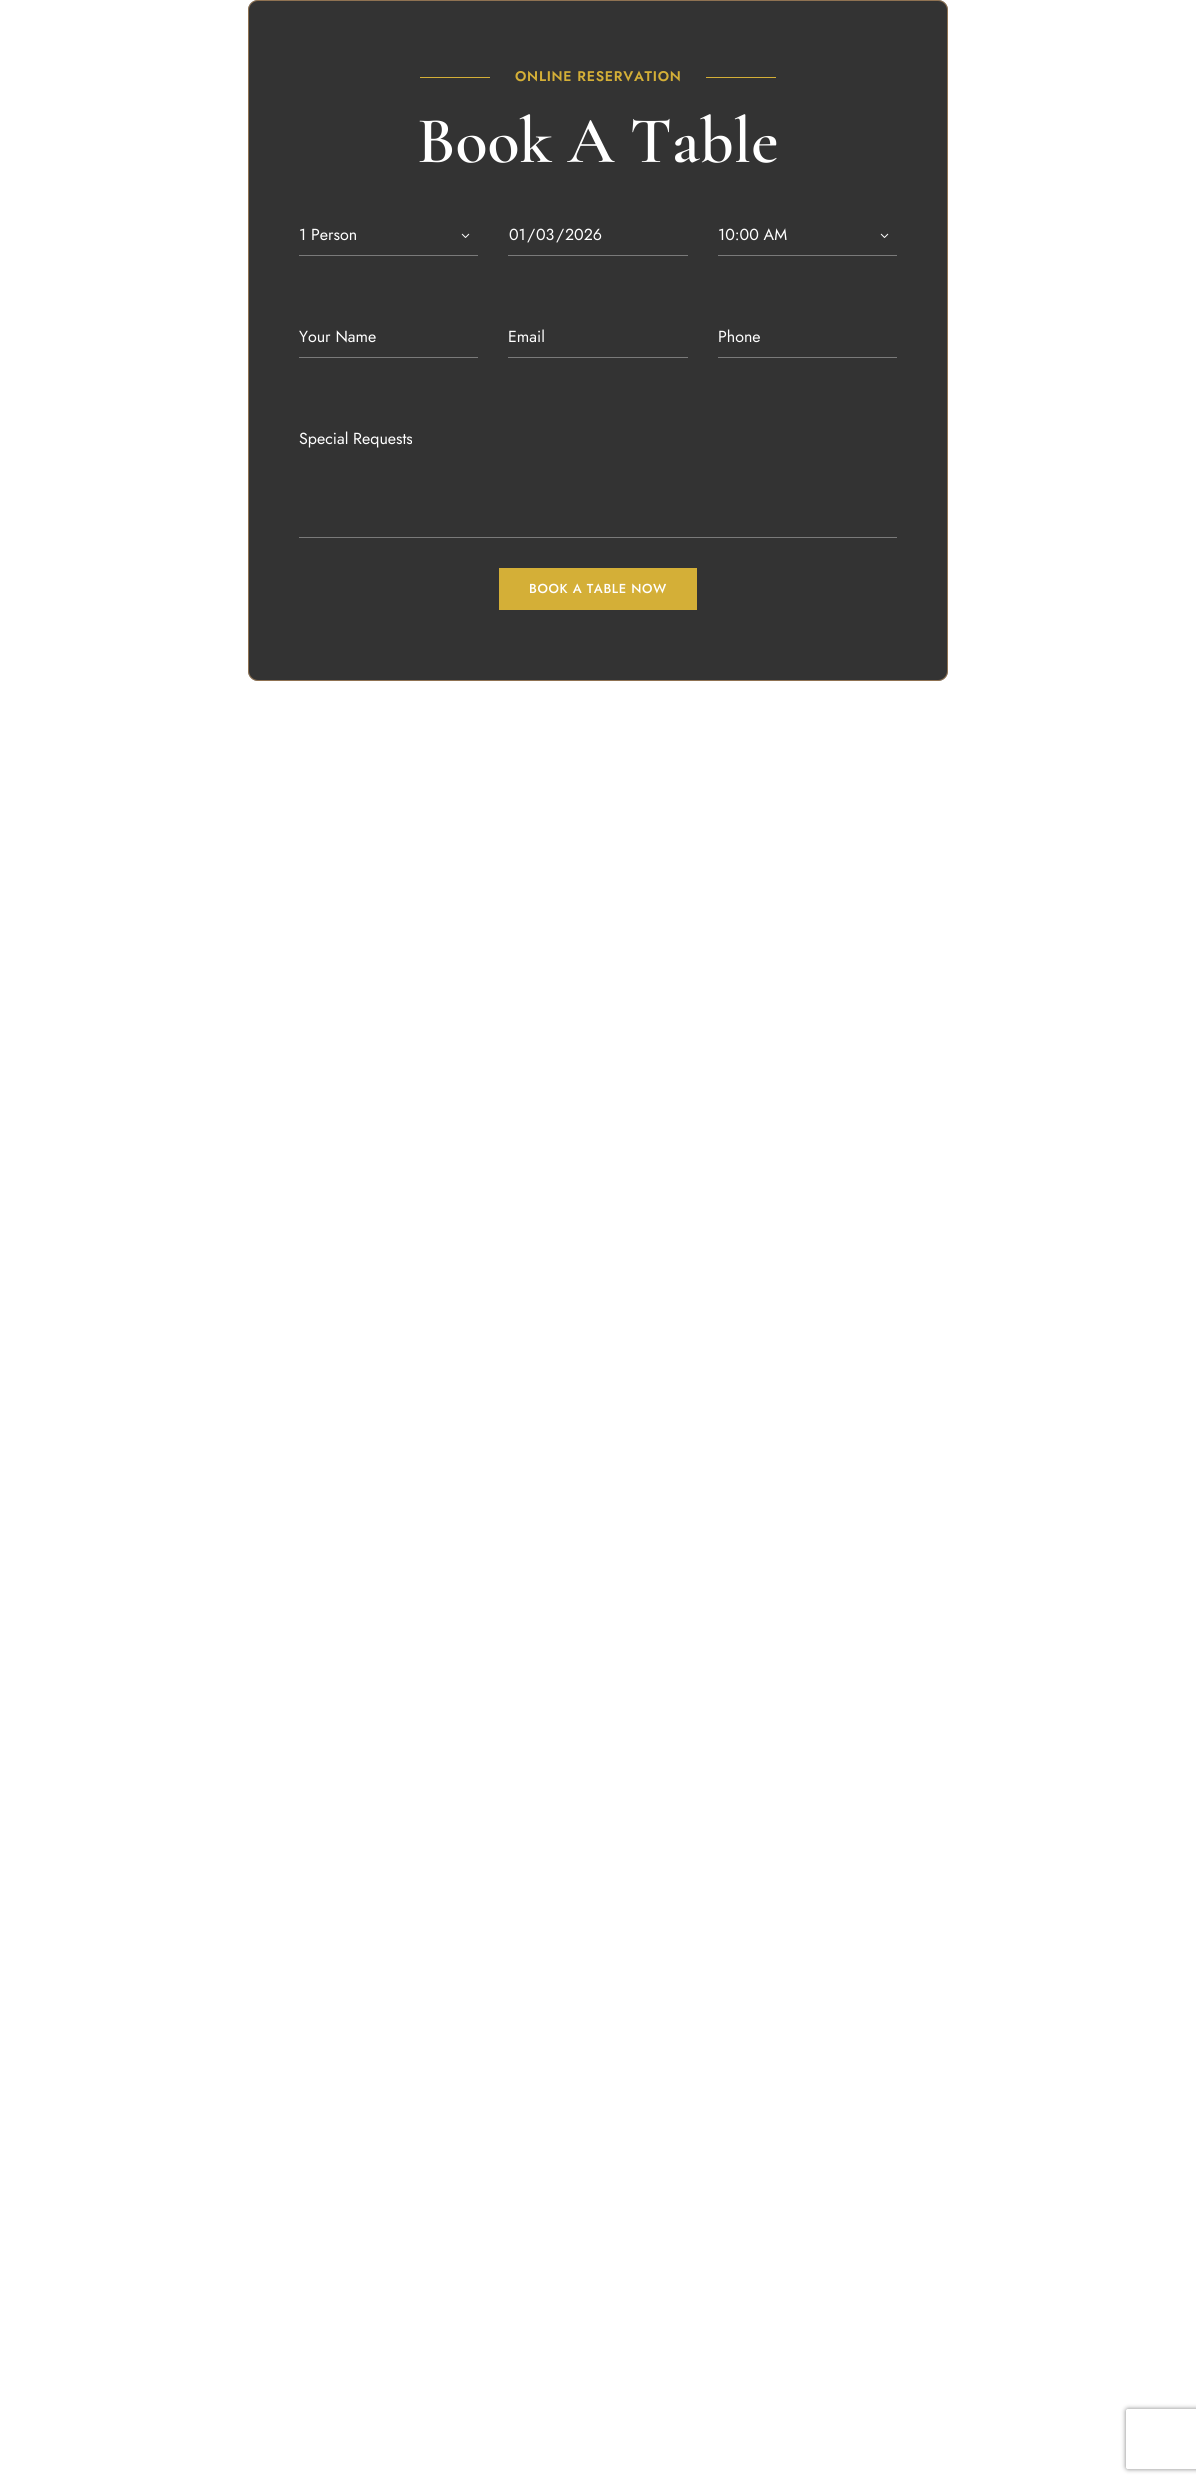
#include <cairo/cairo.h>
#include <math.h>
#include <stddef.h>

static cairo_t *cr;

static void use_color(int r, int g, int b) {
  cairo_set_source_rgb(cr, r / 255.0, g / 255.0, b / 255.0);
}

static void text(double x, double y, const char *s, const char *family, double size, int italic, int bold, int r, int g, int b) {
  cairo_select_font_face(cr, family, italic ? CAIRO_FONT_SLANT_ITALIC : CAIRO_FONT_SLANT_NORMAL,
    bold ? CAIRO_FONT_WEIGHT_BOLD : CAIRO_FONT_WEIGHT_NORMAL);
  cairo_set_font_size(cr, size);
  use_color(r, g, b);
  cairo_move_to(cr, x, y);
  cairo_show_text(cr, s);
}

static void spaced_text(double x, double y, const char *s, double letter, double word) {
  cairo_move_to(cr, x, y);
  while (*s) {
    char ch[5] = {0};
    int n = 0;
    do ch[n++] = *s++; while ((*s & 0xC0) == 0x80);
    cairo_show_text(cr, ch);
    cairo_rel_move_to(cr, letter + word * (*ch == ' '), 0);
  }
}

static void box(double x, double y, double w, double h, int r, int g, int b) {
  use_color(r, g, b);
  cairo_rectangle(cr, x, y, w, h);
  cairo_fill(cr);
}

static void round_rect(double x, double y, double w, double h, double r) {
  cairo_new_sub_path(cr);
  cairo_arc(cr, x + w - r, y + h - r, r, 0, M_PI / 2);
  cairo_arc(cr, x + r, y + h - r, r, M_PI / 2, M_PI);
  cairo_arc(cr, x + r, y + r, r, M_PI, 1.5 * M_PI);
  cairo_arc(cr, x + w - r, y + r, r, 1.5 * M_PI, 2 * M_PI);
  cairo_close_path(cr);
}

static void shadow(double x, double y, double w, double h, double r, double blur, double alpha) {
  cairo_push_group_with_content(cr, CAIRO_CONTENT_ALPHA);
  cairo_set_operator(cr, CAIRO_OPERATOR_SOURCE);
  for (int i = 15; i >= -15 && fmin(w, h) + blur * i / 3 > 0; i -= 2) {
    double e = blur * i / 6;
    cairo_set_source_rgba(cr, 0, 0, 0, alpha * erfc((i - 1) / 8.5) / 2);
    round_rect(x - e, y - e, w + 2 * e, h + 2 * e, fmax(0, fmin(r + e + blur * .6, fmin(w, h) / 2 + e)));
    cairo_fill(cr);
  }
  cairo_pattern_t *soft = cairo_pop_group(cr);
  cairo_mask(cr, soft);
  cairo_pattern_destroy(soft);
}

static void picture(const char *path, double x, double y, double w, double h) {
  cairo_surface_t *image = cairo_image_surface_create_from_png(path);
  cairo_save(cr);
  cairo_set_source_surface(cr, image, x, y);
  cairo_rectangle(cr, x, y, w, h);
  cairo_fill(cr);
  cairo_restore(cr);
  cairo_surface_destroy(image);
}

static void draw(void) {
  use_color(255, 255, 255);
  cairo_paint(cr);
  use_color(51, 51, 51);
  round_rect(248, 0, 700, 681, 10);
  cairo_fill(cr);
  round_rect(248.5, 0.5, 699, 680, 9.5);
  cairo_set_source_rgba(cr, 0.773, 0.592, 0.392, 0.63);
  cairo_set_line_width(cr, 1);
  cairo_stroke(cr);
  box(420, 77, 70, 1, 212, 175, 55);
  box(706, 77, 70, 1, 212, 175, 55);
  box(299, 255, 179, 1, 122, 122, 122);
  picture("img_01.png", 461, 233, 9, 5);
  box(508, 255, 180, 1, 122, 122, 122);
  box(718, 255, 179, 1, 122, 122, 122);
  picture("img_01.png", 880, 233, 9, 5);
  box(299, 357, 179, 1, 122, 122, 122);
  box(508, 357, 180, 1, 122, 122, 122);
  box(718, 357, 179, 1, 122, 122, 122);
  box(299, 537, 598, 1, 122, 122, 122);
  box(499, 568, 198, 42, 212, 175, 55);
  cairo_save(cr);
  cairo_set_fill_rule(cr, CAIRO_FILL_RULE_EVEN_ODD);
  cairo_new_path(cr);
  cairo_move_to(cr, 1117, 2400);
  cairo_line_to(cr, 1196, 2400);
  cairo_line_to(cr, 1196, 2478);
  cairo_line_to(cr, 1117, 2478);
  cairo_close_path(cr);
  cairo_move_to(cr, 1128, 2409);
  cairo_line_to(cr, 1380, 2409);
  cairo_curve_to(cr, 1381, 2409, 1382, 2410, 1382, 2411);
  cairo_line_to(cr, 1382, 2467);
  cairo_curve_to(cr, 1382, 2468, 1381, 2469, 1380, 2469);
  cairo_line_to(cr, 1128, 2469);
  cairo_curve_to(cr, 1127, 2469, 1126, 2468, 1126, 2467);
  cairo_line_to(cr, 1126, 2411);
  cairo_curve_to(cr, 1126, 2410, 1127, 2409, 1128, 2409);
  cairo_close_path(cr);
  cairo_clip(cr);
  use_color(128, 128, 128);
  shadow(1126, 2409, 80, 60, 2, 2.5, 1);
  cairo_restore(cr);
  cairo_select_font_face(cr, "Jost SemiBold", CAIRO_FONT_SLANT_NORMAL, CAIRO_FONT_WEIGHT_NORMAL);
  cairo_set_font_size(cr, 14);
  spaced_text(515, 81, "ONLINE RESERVATION", 0.75, 0);
  text(417, 162, "Book A Table", "Cormorant Garamond SemiBold", 66, 0, 0, 255, 255, 255);
  text(299, 240, "1 Person", "Jost", 16, 0, 0, 255, 255, 255);
  text(509, 240, "01", "Jost", 16, 0, 0, 255, 255, 255);
  text(527, 240, "/", "Jost", 16, 0, 0, 255, 255, 255);
  text(536, 240, "03", "Jost", 16, 0, 0, 255, 255, 255);
  text(556, 240, "/", "Jost", 16, 0, 0, 255, 255, 255);
  text(565, 240, "2026", "Jost", 16, 0, 0, 255, 255, 255);
  text(718, 240, "10:00 AM", "Jost", 16, 0, 0, 255, 255, 255);
  text(299, 342, "Your Name", "Jost", 16, 0, 0, 255, 255, 255);
  text(508, 342, "Email", "Jost", 16, 0, 0, 255, 255, 255);
  text(718, 342, "Phone", "Jost", 16, 0, 0, 255, 255, 255);
  text(299, 444, "Special Requests", "Jost", 16, 0, 0, 255, 255, 255);
  cairo_select_font_face(cr, "Jost Medium", CAIRO_FONT_SLANT_NORMAL, CAIRO_FONT_WEIGHT_NORMAL);
  cairo_set_font_size(cr, 13);
  spaced_text(529, 593, "BOOK A TABLE NOW", 0.6, 0);
}

int main(void) {
  cairo_surface_t *surface = cairo_image_surface_create(CAIRO_FORMAT_RGB24, 1196, 2483);
  cr = cairo_create(surface);
  cairo_font_options_t *options = cairo_font_options_create();
  cairo_font_options_set_hint_metrics(options, CAIRO_HINT_METRICS_OFF);
  cairo_font_options_set_hint_style(options, CAIRO_HINT_STYLE_NONE);
  cairo_set_font_options(cr, options);
  cairo_set_miter_limit(cr, 4);
  draw();
  cairo_surface_write_to_png(surface, "out.png");
  cairo_font_options_destroy(options);
  cairo_destroy(cr);
  cairo_surface_destroy(surface);
  return 0;
}
